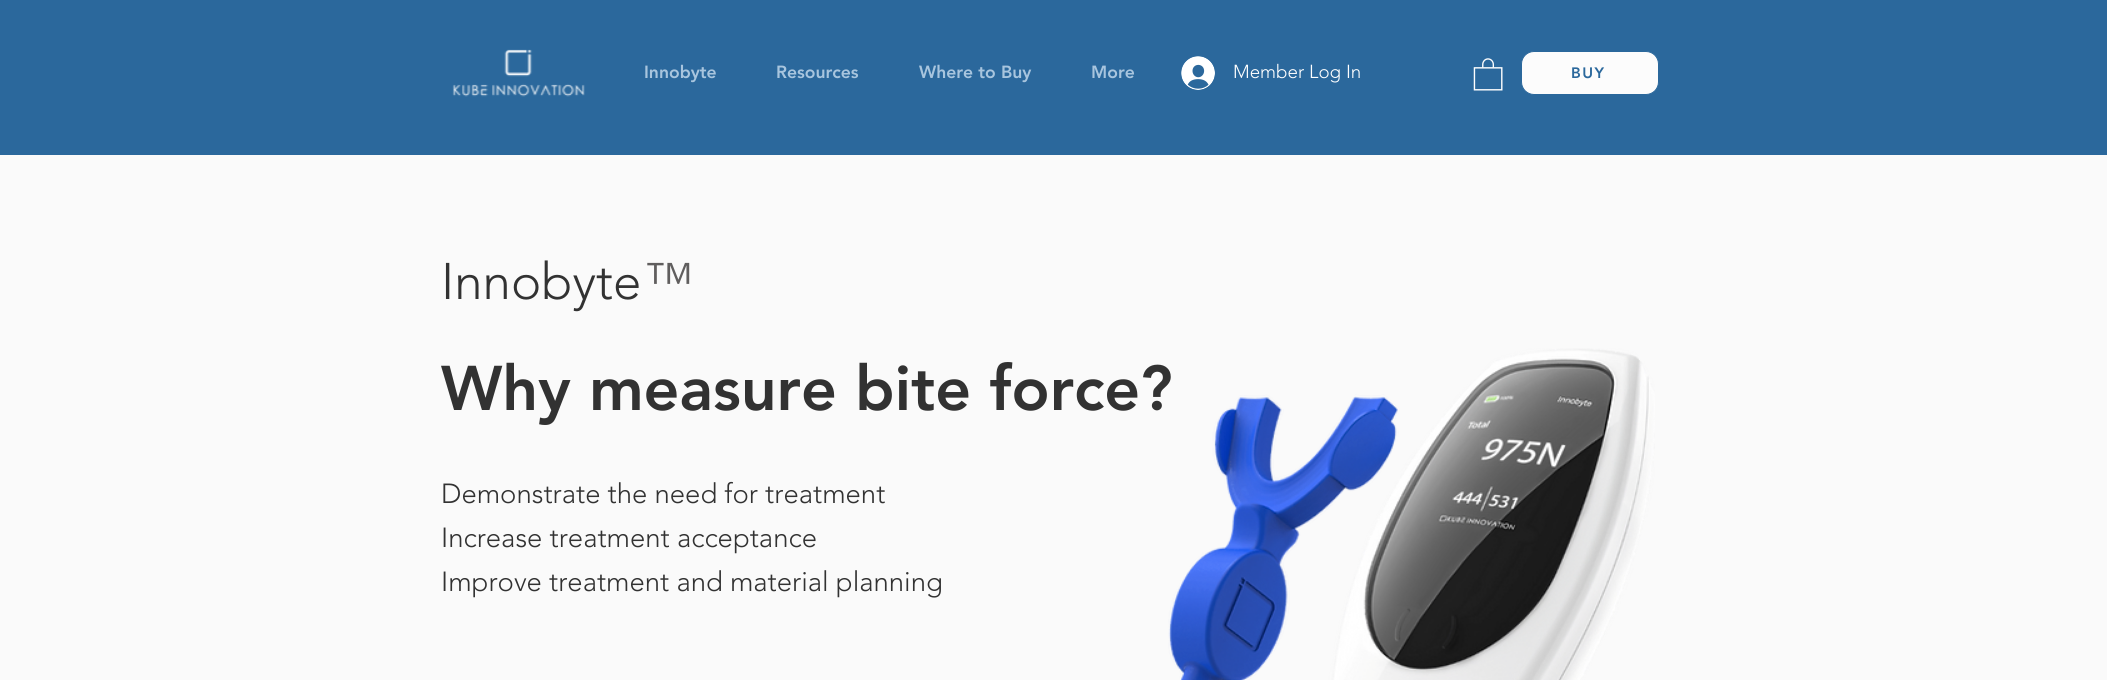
#include <cairo/cairo.h>
#include <math.h>
#include <stddef.h>

static cairo_t *cr;

static void use_color(int r, int g, int b) {
  cairo_set_source_rgb(cr, r / 255.0, g / 255.0, b / 255.0);
}

static void text(double x, double y, const char *s, const char *family, double size, int italic, int bold, int r, int g, int b) {
  cairo_select_font_face(cr, family, italic ? CAIRO_FONT_SLANT_ITALIC : CAIRO_FONT_SLANT_NORMAL,
    bold ? CAIRO_FONT_WEIGHT_BOLD : CAIRO_FONT_WEIGHT_NORMAL);
  cairo_set_font_size(cr, size);
  use_color(r, g, b);
  cairo_move_to(cr, x, y);
  cairo_show_text(cr, s);
}

static void spaced_text(double x, double y, const char *s, double letter, double word) {
  cairo_move_to(cr, x, y);
  while (*s) {
    char ch[5] = {0};
    int n = 0;
    do ch[n++] = *s++; while ((*s & 0xC0) == 0x80);
    cairo_show_text(cr, ch);
    cairo_rel_move_to(cr, letter + word * (*ch == ' '), 0);
  }
}

static void box(double x, double y, double w, double h, int r, int g, int b) {
  use_color(r, g, b);
  cairo_rectangle(cr, x, y, w, h);
  cairo_fill(cr);
}

static void round_rect(double x, double y, double w, double h, double r) {
  cairo_new_sub_path(cr);
  cairo_arc(cr, x + w - r, y + h - r, r, 0, M_PI / 2);
  cairo_arc(cr, x + r, y + h - r, r, M_PI / 2, M_PI);
  cairo_arc(cr, x + r, y + r, r, M_PI, 1.5 * M_PI);
  cairo_arc(cr, x + w - r, y + r, r, 1.5 * M_PI, 2 * M_PI);
  cairo_close_path(cr);
}

static void picture(const char *path, double x, double y, double w, double h) {
  cairo_surface_t *image = cairo_image_surface_create_from_png(path);
  cairo_save(cr);
  cairo_set_source_surface(cr, image, x, y);
  cairo_rectangle(cr, x, y, w, h);
  cairo_fill(cr);
  cairo_restore(cr);
  cairo_surface_destroy(image);
}

static void draw(void) {
  use_color(250, 250, 250);
  cairo_paint(cr);
  box(0, 0, 2107, 155, 43, 104, 156);
  picture("img_01.png", 452, 49, 133, 48);
  picture("img_02.png", 1181, 56, 34, 34);
  picture("img_03.png", 1473, 58, 30, 33);
  use_color(252, 252, 252);
  round_rect(1521.5, 51.5, 137, 43, 12.5);
  cairo_fill_preserve(cr);
  use_color(43, 104, 156);
  cairo_set_line_width(cr, 1);
  cairo_stroke(cr);
  picture("img_04.png", 1168, 348, 487, 332);
  text(644, 78, "Innobyte", "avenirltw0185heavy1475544 Black", 17.5, 0, 0, 168, 197, 222);
  text(776, 78, "Resources", "avenirltw0185heavy1475544 Black", 17.5, 0, 0, 168, 197, 222);
  text(919, 78, "Where to Buy", "avenirltw0185heavy1475544 Black", 17.5, 0, 0, 168, 197, 222);
  text(1091, 78, "More", "avenirltw0185heavy1475544 Black", 17.5, 0, 0, 168, 197, 222);
  text(1233, 78, "Member Log In", "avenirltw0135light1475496 Light", 18.75, 0, 0, 255, 255, 255);
  cairo_select_font_face(cr, "avenirltw0185heavy1475544 Black", CAIRO_FONT_SLANT_NORMAL, CAIRO_FONT_WEIGHT_NORMAL);
  cairo_set_font_size(cr, 15);
  use_color(43, 104, 156);
  spaced_text(1571, 78, "BUY", 1.5, 0);
  text(441, 299, "Innobyte", "avenirltw0135light1475496 Light", 51, 0, 0, 50, 50, 50);
  use_color(96, 94, 94);
  spaced_text(643, 299, "™", 3, 0);
  text(441, 410, "Why measure bite force?", "avenirltw0185heavy1475544 Black", 62.5, 0, 0, 50, 50, 50);
  text(441, 503, "Demonstrate the need for treatment", "avenirltw0135light1475496 Light", 27.5, 0, 0, 50, 50, 50);
  text(441, 547, "Increase treatment acceptance", "avenirltw0135light1475496 Light", 27.5, 0, 0, 50, 50, 50);
  text(441, 591, "Improve treatment and material planning", "avenirltw0135light1475496 Light", 27.5, 0, 0, 50, 50, 50);
}

int main(void) {
  cairo_surface_t *surface = cairo_image_surface_create(CAIRO_FORMAT_RGB24, 2107, 680);
  cr = cairo_create(surface);
  cairo_font_options_t *options = cairo_font_options_create();
  cairo_font_options_set_hint_metrics(options, CAIRO_HINT_METRICS_OFF);
  cairo_font_options_set_hint_style(options, CAIRO_HINT_STYLE_NONE);
  cairo_set_font_options(cr, options);
  cairo_set_miter_limit(cr, 4);
  draw();
  cairo_surface_write_to_png(surface, "out.png");
  cairo_font_options_destroy(options);
  cairo_destroy(cr);
  cairo_surface_destroy(surface);
  return 0;
}
